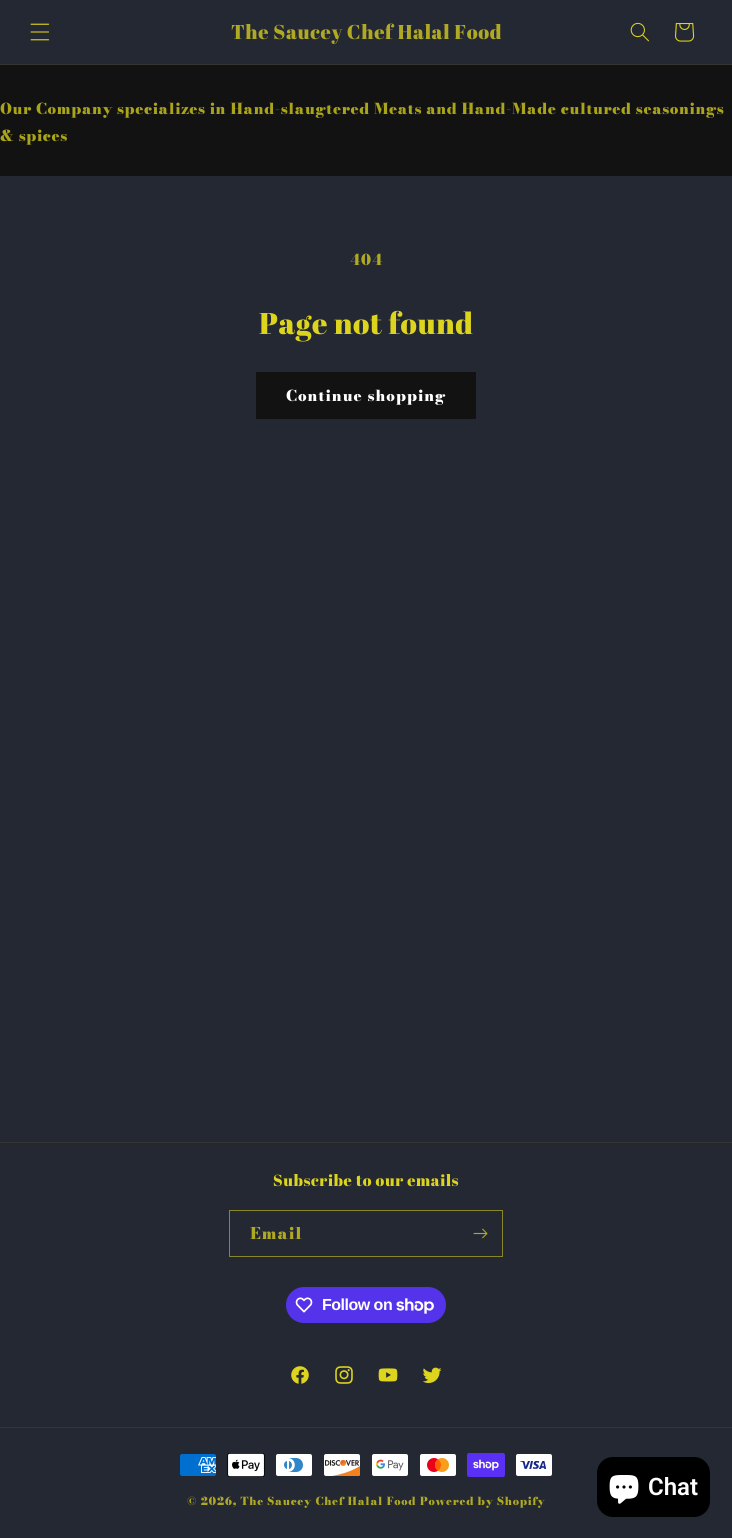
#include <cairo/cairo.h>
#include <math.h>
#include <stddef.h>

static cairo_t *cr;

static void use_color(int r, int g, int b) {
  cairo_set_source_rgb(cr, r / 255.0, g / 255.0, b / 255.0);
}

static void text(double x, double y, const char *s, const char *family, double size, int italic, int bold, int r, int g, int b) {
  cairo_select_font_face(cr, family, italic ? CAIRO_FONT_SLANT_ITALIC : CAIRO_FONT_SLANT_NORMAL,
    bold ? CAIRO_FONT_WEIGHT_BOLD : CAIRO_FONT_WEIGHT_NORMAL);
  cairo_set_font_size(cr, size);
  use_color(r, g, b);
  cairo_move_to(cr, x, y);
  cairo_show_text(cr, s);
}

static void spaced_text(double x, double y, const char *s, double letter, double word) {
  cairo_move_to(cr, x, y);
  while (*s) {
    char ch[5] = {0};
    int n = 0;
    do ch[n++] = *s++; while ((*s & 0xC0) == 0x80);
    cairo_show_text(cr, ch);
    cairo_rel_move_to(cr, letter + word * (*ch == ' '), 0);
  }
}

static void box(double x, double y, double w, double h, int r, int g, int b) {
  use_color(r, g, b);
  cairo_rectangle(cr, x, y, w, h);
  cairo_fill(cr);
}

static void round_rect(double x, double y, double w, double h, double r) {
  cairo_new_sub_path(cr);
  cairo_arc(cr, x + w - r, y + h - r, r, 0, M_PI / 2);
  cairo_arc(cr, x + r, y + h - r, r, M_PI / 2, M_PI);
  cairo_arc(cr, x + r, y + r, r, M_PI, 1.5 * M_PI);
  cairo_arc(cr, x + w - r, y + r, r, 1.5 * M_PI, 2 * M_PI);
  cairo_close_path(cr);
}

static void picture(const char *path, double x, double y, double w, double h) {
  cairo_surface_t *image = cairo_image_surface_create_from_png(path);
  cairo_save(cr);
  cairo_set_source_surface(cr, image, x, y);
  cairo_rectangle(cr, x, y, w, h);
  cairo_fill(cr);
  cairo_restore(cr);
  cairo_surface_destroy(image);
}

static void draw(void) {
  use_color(36, 40, 51);
  cairo_paint(cr);
  box(0, 64, 732, 1, 51, 54, 49);
  picture("img_01.png", 30, 23, 20, 18);
  picture("img_02.png", 630, 22, 19, 20);
  picture("img_03.png", 675, 23, 20, 19);
  box(0, 65, 732, 111, 18, 18, 18);
  box(256, 372, 220, 47, 18, 18, 18);
  box(0, 1142, 732, 1, 51, 54, 49);
  cairo_rectangle(cr, 229.5, 1210.5, 273, 46);
  use_color(138, 135, 39);
  cairo_set_line_width(cr, 1);
  cairo_stroke(cr);
  picture("img_04.png", 473, 1228, 15, 11);
  use_color(84, 51, 235);
  round_rect(286, 1287, 160, 36, 18);
  cairo_fill(cr);
  picture("img_05.png", 295, 1297, 18, 16);
  picture("img_06.png", 396, 1298, 38, 16);
  picture("img_07.png", 291, 1366, 18, 18);
  picture("img_08.png", 335, 1366, 18, 18);
  picture("img_09.png", 378, 1368, 20, 14);
  picture("img_10.png", 422, 1367, 20, 16);
  box(0, 1427, 732, 1, 51, 54, 49);
  picture("img_11.png", 180, 1454, 36, 22);
  picture("img_12.png", 227, 1453, 38, 24);
  picture("img_13.png", 276, 1454, 36, 22);
  picture("img_14.png", 324, 1454, 36, 22);
  picture("img_15.png", 372, 1454, 36, 22);
  picture("img_16.png", 420, 1454, 36, 22);
  picture("img_17.png", 467, 1453, 38, 24);
  picture("img_18.png", 516, 1454, 36, 22);
  use_color(0, 0, 0);
  round_rect(597, 1457, 113, 60, 16);
  cairo_fill(cr);
  picture("img_19.png", 609, 1475, 30, 29);
  cairo_select_font_face(cr, "Abril Fatface", CAIRO_FONT_SLANT_NORMAL, CAIRO_FONT_WEIGHT_NORMAL);
  cairo_set_font_size(cr, 20);
  use_color(175, 169, 35);
  spaced_text(231, 39, "The Saucey Chef Halal Food", 0.6, 0);
  cairo_select_font_face(cr, "Bodoni Moda Black", CAIRO_FONT_SLANT_NORMAL, CAIRO_FONT_WEIGHT_NORMAL);
  cairo_set_font_size(cr, 15);
  use_color(170, 164, 26);
  spaced_text(0, 114, "Our Company specializes in Hand-slaugtered Meats and Hand-Made cultured seasonings", 0.6, -0.25);
  spaced_text(0, 141, "& spices", 0.6, 0);
  use_color(175, 169, 35);
  spaced_text(350, 265, "404", 0.6, 0);
  cairo_select_font_face(cr, "Abril Fatface", CAIRO_FONT_SLANT_NORMAL, CAIRO_FONT_WEIGHT_NORMAL);
  cairo_set_font_size(cr, 30);
  use_color(221, 212, 29);
  spaced_text(259, 334, "Page not found", 0.6, 0);
  cairo_select_font_face(cr, "Bodoni Moda Black", CAIRO_FONT_SLANT_NORMAL, CAIRO_FONT_WEIGHT_NORMAL);
  cairo_set_font_size(cr, 15);
  use_color(255, 255, 255);
  spaced_text(286, 401, "Continue shopping", 1, 0);
  cairo_select_font_face(cr, "Abril Fatface", CAIRO_FONT_SLANT_NORMAL, CAIRO_FONT_WEIGHT_NORMAL);
  cairo_set_font_size(cr, 16);
  use_color(221, 212, 29);
  spaced_text(273, 1186, "Subscribe to our emails", 0.6, 0);
  cairo_select_font_face(cr, "Bodoni Moda Black", CAIRO_FONT_SLANT_NORMAL, CAIRO_FONT_WEIGHT_NORMAL);
  use_color(175, 169, 35);
  spaced_text(250, 1239, "Email", 1, 0);
  cairo_select_font_face(cr, "Liberation Sans", CAIRO_FONT_SLANT_NORMAL, CAIRO_FONT_WEIGHT_BOLD);
  use_color(255, 255, 255);
  spaced_text(322, 1310, "Follow on", -0.5, 0);
  cairo_select_font_face(cr, "Bodoni Moda Black", CAIRO_FONT_SLANT_NORMAL, CAIRO_FONT_WEIGHT_NORMAL);
  cairo_set_font_size(cr, 11);
  use_color(175, 169, 35);
  spaced_text(187, 1505, "© 2026, The Saucey Chef Halal Food Powered by Shopify", 0.7, 0);
  text(648, 1495, "Chat", "Roboto SemiBold", 24, 0, 0, 255, 255, 255);
}

int main(void) {
  cairo_surface_t *surface = cairo_image_surface_create(CAIRO_FORMAT_RGB24, 732, 1538);
  cr = cairo_create(surface);
  cairo_font_options_t *options = cairo_font_options_create();
  cairo_font_options_set_hint_metrics(options, CAIRO_HINT_METRICS_OFF);
  cairo_font_options_set_hint_style(options, CAIRO_HINT_STYLE_NONE);
  cairo_set_font_options(cr, options);
  cairo_set_miter_limit(cr, 4);
  draw();
  cairo_surface_write_to_png(surface, "out.png");
  cairo_font_options_destroy(options);
  cairo_destroy(cr);
  cairo_surface_destroy(surface);
  return 0;
}
